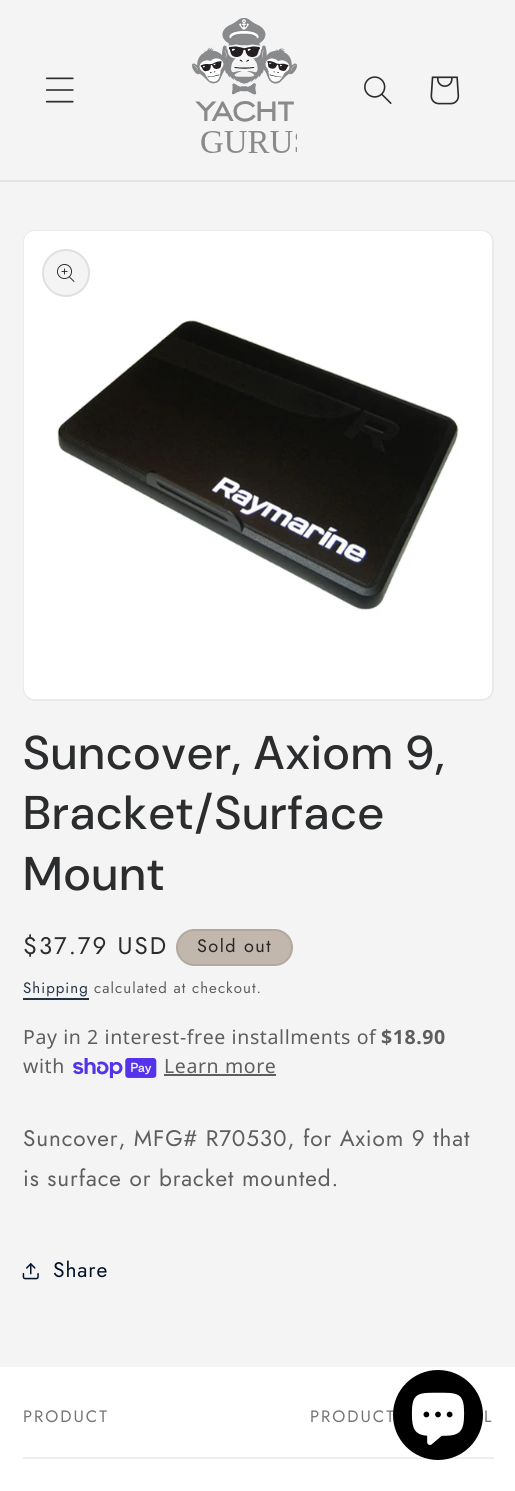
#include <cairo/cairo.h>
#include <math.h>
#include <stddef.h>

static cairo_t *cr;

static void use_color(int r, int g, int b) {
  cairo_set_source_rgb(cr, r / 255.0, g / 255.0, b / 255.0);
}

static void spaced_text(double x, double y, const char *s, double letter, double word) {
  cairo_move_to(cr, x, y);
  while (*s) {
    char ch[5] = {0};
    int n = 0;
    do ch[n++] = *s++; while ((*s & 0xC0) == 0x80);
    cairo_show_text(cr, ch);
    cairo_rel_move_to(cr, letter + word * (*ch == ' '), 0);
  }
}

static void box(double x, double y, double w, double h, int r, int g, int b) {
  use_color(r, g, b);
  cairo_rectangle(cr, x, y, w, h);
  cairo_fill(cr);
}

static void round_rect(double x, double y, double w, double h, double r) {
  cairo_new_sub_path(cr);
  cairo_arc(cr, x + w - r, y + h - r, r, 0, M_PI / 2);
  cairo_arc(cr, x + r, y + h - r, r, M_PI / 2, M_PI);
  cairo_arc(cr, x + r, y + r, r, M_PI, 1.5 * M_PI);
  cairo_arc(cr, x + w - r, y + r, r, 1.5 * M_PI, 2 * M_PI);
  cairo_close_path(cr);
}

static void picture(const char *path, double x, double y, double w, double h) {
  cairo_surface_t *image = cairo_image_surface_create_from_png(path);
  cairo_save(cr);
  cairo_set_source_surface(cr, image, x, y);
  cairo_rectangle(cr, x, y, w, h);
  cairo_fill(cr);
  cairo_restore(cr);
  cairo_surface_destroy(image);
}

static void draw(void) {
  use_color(244, 244, 244);
  cairo_paint(cr);
  box(0, 180, 515, 2, 228, 228, 228);
  picture("img_01.png", 45, 77, 29, 26);
  picture("img_02.png", 192, 18, 105, 135);
  picture("img_03.png", 364, 76, 28, 28);
  picture("img_04.png", 430, 76, 30, 29);
  round_rect(24, 231, 469, 469, 11);
  use_color(234, 234, 234);
  cairo_stroke(cr);
  picture("img_05.png", 24, 231, 468, 468);
  use_color(244, 244, 244);
  cairo_arc(cr, 66, 273, 24, 0, 2 * M_PI);
  cairo_fill(cr);
  cairo_arc(cr, 66, 273, 23, 0, 2 * M_PI);
  cairo_set_source_rgba(cr, 0.169, 0.173, 0.176, 0.1);
  cairo_stroke(cr);
  picture("img_06.png", 57, 264, 18, 18);
  use_color(194, 183, 172);
  round_rect(176, 929, 117, 37, 18.5);
  cairo_fill(cr);
  round_rect(177, 930, 115, 35, 17.5);
  cairo_set_source_rgba(cr, 0.149, 0.149, 0.149, 0.1);
  cairo_stroke(cr);
  box(23, 998, 66, 2, 37, 51, 71);
  picture("img_07.png", 73, 1058, 84, 21);
  box(164, 1074, 112, 2, 93, 94, 95);
  picture("img_08.png", 22, 1263, 17, 17);
  box(0, 1367, 515, 124, 255, 255, 255);
  box(23, 1457, 471, 2, 238, 238, 238);
  cairo_select_font_face(cr, "DM Sans Medium", CAIRO_FONT_SLANT_NORMAL, CAIRO_FONT_WEIGHT_NORMAL);
  cairo_set_font_size(cr, 47.25);
  use_color(43, 44, 45);
  spaced_text(23, 769, "Suncover, Axiom 9,", 1, 0);
  spaced_text(23, 829, "Bracket/Surface", 1, 0);
  spaced_text(23, 890, "Mount", 1, 0);
  cairo_select_font_face(cr, "Jost", CAIRO_FONT_SLANT_NORMAL, CAIRO_FONT_WEIGHT_NORMAL);
  cairo_set_font_size(cr, 24);
  spaced_text(23, 954, "$37.79 USD", 2, 0);
  cairo_set_font_size(cr, 18);
  use_color(38, 38, 38);
  spaced_text(197, 952, "Sold out", 1.5, 0);
  cairo_set_font_size(cr, 15);
  use_color(37, 51, 71);
  spaced_text(23, 993, "Shipping", 1.05, 0);
  use_color(93, 94, 95);
  spaced_text(94, 993, "calculated at checkout.", 1.05, 0);
  cairo_select_font_face(cr, "Noto Sans", CAIRO_FONT_SLANT_NORMAL, CAIRO_FONT_WEIGHT_NORMAL);
  cairo_set_font_size(cr, 19.5);
  spaced_text(23, 1044, "Pay in 2 interest-free installments of", 0.6, 0);
  cairo_select_font_face(cr, "Noto Sans", CAIRO_FONT_SLANT_NORMAL, CAIRO_FONT_WEIGHT_BOLD);
  spaced_text(381, 1044, "$18.90", 0.6, 0);
  cairo_select_font_face(cr, "Noto Sans", CAIRO_FONT_SLANT_NORMAL, CAIRO_FONT_WEIGHT_NORMAL);
  spaced_text(23, 1073, "with", 0.6, 0);
  spaced_text(164, 1073, "Learn more", 0.6, 0);
  cairo_select_font_face(cr, "Jost", CAIRO_FONT_SLANT_NORMAL, CAIRO_FONT_WEIGHT_NORMAL);
  cairo_set_font_size(cr, 22.5);
  spaced_text(23, 1146, "Suncover, MFG# R70530, for Axiom 9 that", 0.9, 0);
  spaced_text(23, 1186, "is surface or bracket mounted.", 0.9, 0);
  cairo_set_font_size(cr, 21);
  use_color(0, 17, 40);
  spaced_text(53, 1277, "Share", 0.9, 0);
  cairo_set_font_size(cr, 16.5);
  use_color(117, 117, 117);
  spaced_text(23, 1422, "PRODUCT", 2, 0);
  spaced_text(310, 1422, "PRODUCT", 2, 0);
  spaced_text(484, 1422, "L", 2, 0);
  use_color(0, 0, 0);
  cairo_new_path(cr);
  cairo_arc(cr, 438, 1415, 45, 0, 2 * M_PI);
  cairo_fill(cr);
  picture("img_09.png", 411, 1392, 54, 53);
}

int main(void) {
  cairo_surface_t *surface = cairo_image_surface_create(CAIRO_FORMAT_RGB24, 515, 1491);
  cr = cairo_create(surface);
  cairo_font_options_t *options = cairo_font_options_create();
  cairo_font_options_set_hint_metrics(options, CAIRO_HINT_METRICS_OFF);
  cairo_font_options_set_hint_style(options, CAIRO_HINT_STYLE_NONE);
  cairo_set_font_options(cr, options);
  cairo_set_miter_limit(cr, 4);
  draw();
  cairo_surface_write_to_png(surface, "out.png");
  cairo_font_options_destroy(options);
  cairo_destroy(cr);
  cairo_surface_destroy(surface);
  return 0;
}
